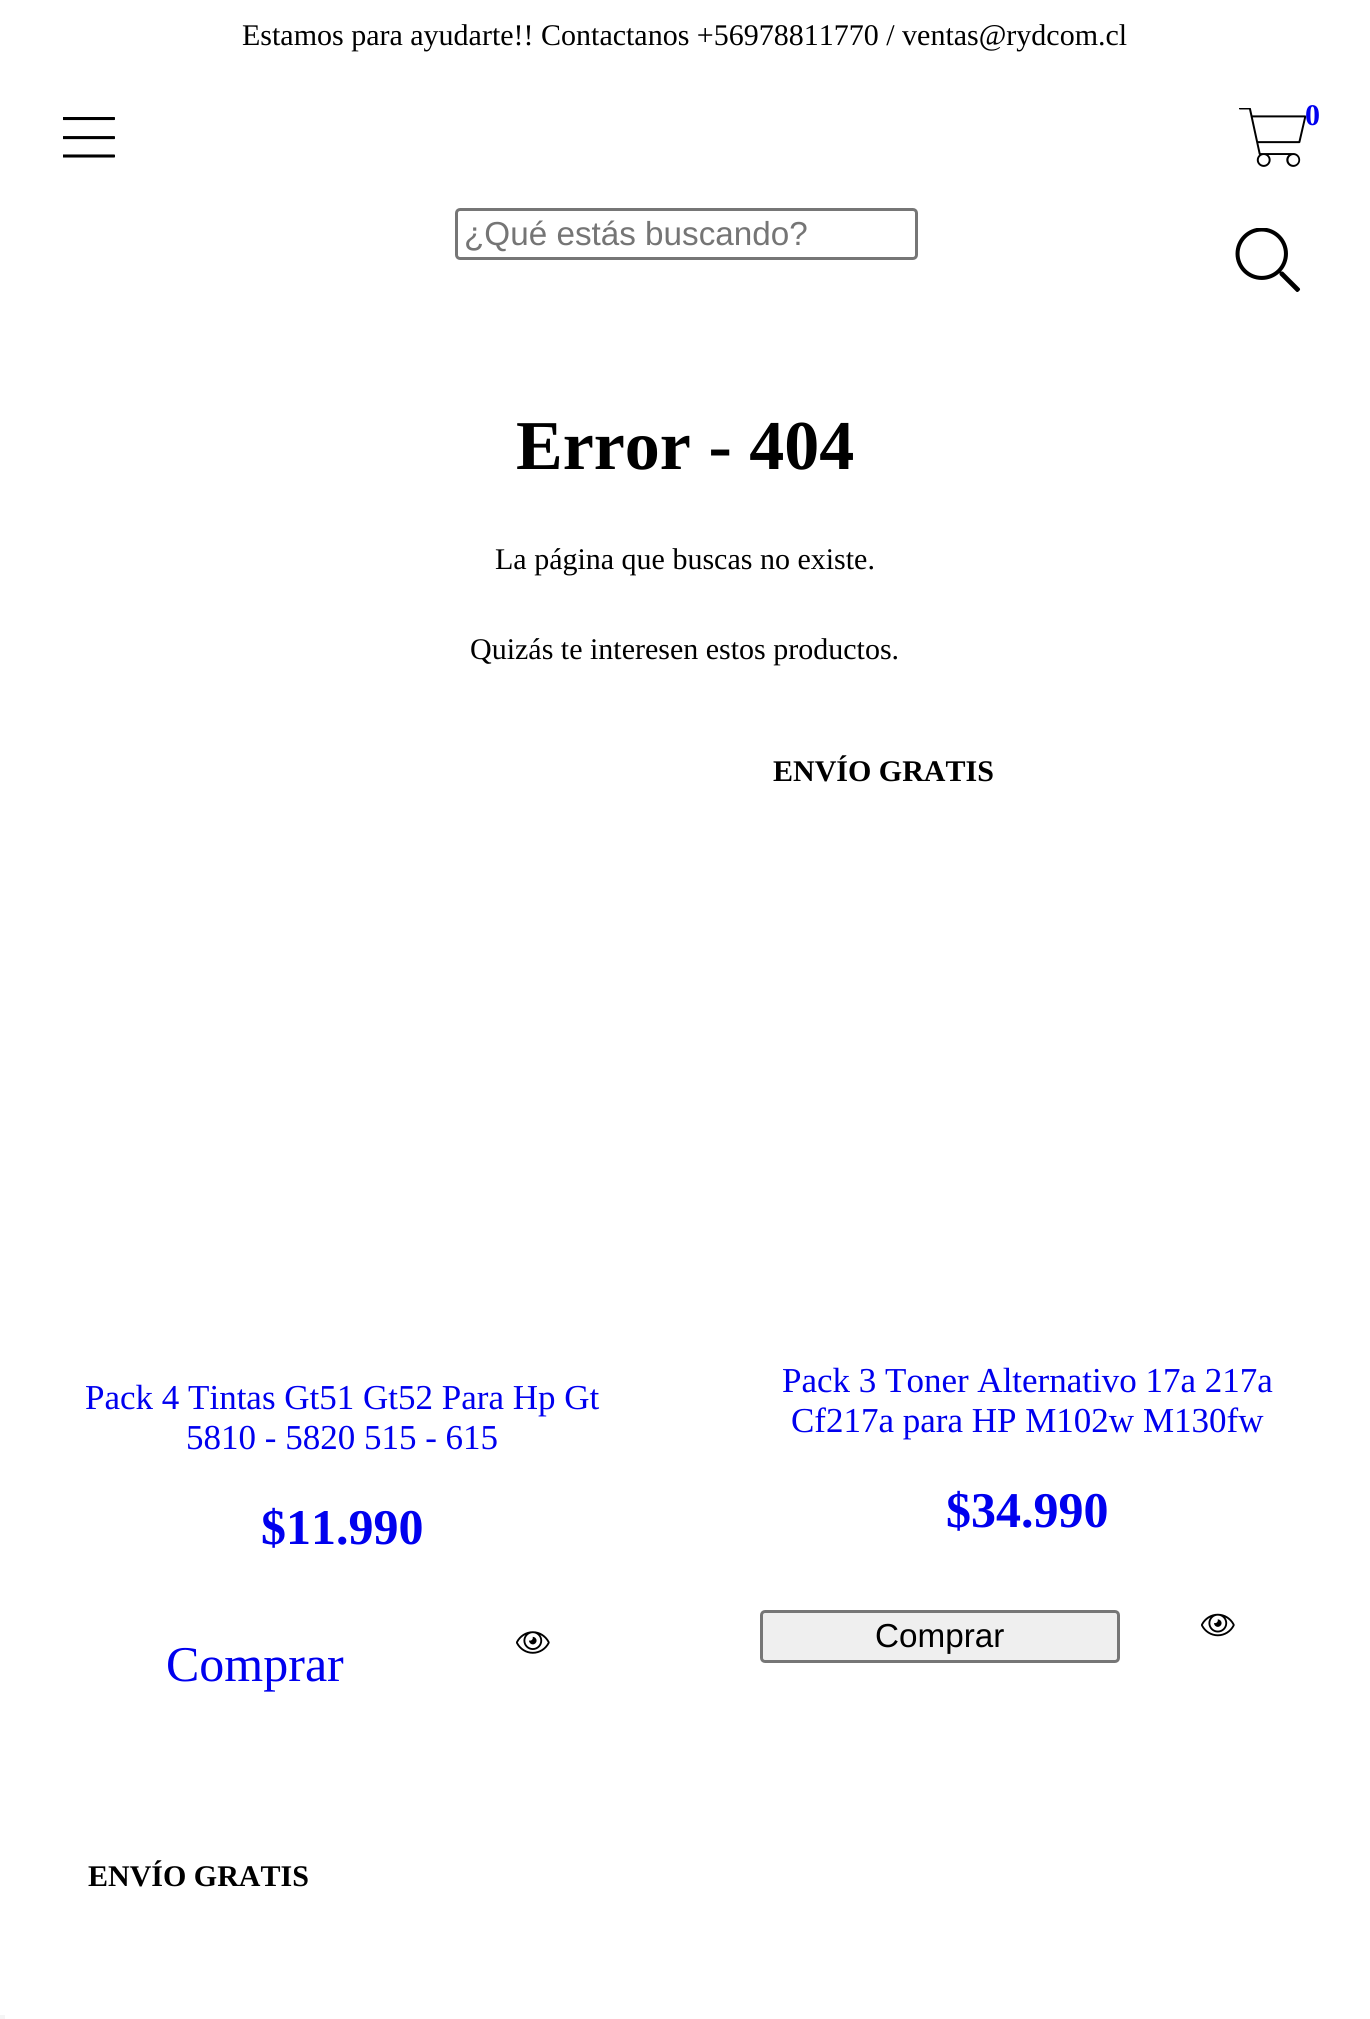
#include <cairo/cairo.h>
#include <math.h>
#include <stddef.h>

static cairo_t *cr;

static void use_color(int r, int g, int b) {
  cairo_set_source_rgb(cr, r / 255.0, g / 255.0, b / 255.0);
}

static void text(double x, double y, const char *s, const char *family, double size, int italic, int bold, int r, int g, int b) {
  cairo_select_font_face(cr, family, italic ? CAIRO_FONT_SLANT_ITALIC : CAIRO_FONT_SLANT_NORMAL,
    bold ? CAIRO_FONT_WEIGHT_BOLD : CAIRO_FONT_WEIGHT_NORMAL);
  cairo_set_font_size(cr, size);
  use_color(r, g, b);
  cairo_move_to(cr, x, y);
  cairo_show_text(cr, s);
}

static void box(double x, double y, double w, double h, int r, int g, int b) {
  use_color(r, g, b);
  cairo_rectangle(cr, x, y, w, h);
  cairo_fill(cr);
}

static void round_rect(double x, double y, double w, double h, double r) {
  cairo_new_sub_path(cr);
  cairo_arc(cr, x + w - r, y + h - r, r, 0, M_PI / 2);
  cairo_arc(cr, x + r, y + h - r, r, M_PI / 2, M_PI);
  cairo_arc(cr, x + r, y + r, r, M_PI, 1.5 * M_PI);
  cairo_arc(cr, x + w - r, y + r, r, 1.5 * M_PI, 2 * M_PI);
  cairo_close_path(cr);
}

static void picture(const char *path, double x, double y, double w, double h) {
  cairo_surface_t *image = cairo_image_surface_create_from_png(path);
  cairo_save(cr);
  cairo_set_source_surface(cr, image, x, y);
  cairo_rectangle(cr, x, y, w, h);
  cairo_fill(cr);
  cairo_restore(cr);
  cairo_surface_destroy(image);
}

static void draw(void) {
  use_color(255, 255, 255);
  cairo_paint(cr);
  picture("img_01.png", 63, 117, 52, 41);
  picture("img_02.png", 1239, 108, 68, 59);
  round_rect(456.5, 209.5, 460, 49, 3.5);
  use_color(118, 118, 118);
  cairo_set_line_width(cr, 3);
  cairo_stroke(cr);
  picture("img_03.png", 1235, 228, 66, 64);
  picture("img_04.png", 516, 1631, 34, 23);
  use_color(239, 239, 239);
  round_rect(761.5, 1611.5, 357, 50, 3.5);
  cairo_fill_preserve(cr);
  use_color(118, 118, 118);
  cairo_stroke(cr);
  picture("img_05.png", 1201, 1613, 34, 24);
  box(0, 2015, 5, 4, 245, 245, 245);
  text(242, 45, "Estamos para ayudarte!! Contactanos +56978811770 / ventas@rydcom.cl", "Liberation Serif", 30, 0, 0, 0, 0, 0);
  text(1305, 125, "0", "Liberation Serif", 30, 0, 1, 0, 0, 238);
  text(464, 245, "¿Qué estás buscando?", "Liberation Sans", 33.25, 0, 0, 117, 117, 117);
  text(516, 469, "Error - 404", "Liberation Serif", 70, 0, 1, 0, 0, 0);
  text(495, 569, "La página que buscas no existe.", "Liberation Serif", 30, 0, 0, 0, 0, 0);
  text(470, 659, "Quizás te interesen estos productos.", "Liberation Serif", 30, 0, 0, 0, 0, 0);
  text(85, 1409, "Pack 4 Tintas Gt51 Gt52 Para Hp Gt", "Liberation Serif", 35, 0, 0, 0, 0, 238);
  text(186, 1449, "5810 - 5820 515 - 615", "Liberation Serif", 35, 0, 0, 0, 0, 238);
  text(261, 1544, "$11.990", "Liberation Serif", 50, 0, 1, 0, 0, 238);
  text(166, 1681, "Comprar", "Liberation Serif", 50, 0, 0, 0, 0, 238);
  text(773, 781, "ENVÍO GRATIS", "Liberation Serif", 30, 0, 1, 0, 0, 0);
  text(782, 1392, "Pack 3 Toner Alternativo 17a 217a", "Liberation Serif", 35, 0, 0, 0, 0, 238);
  text(791, 1432, "Cf217a para HP M102w M130fw", "Liberation Serif", 35, 0, 0, 0, 0, 238);
  text(946, 1527, "$34.990", "Liberation Serif", 50, 0, 1, 0, 0, 238);
  text(875, 1647, "Comprar", "Liberation Sans", 33.25, 0, 0, 0, 0, 0);
  text(88, 1886, "ENVÍO GRATIS", "Liberation Serif", 30, 0, 1, 0, 0, 0);
}

int main(void) {
  cairo_surface_t *surface = cairo_image_surface_create(CAIRO_FORMAT_RGB24, 1370, 2019);
  cr = cairo_create(surface);
  cairo_font_options_t *options = cairo_font_options_create();
  cairo_font_options_set_hint_metrics(options, CAIRO_HINT_METRICS_OFF);
  cairo_font_options_set_hint_style(options, CAIRO_HINT_STYLE_NONE);
  cairo_set_font_options(cr, options);
  cairo_set_miter_limit(cr, 4);
  draw();
  cairo_surface_write_to_png(surface, "out.png");
  cairo_font_options_destroy(options);
  cairo_destroy(cr);
  cairo_surface_destroy(surface);
  return 0;
}
